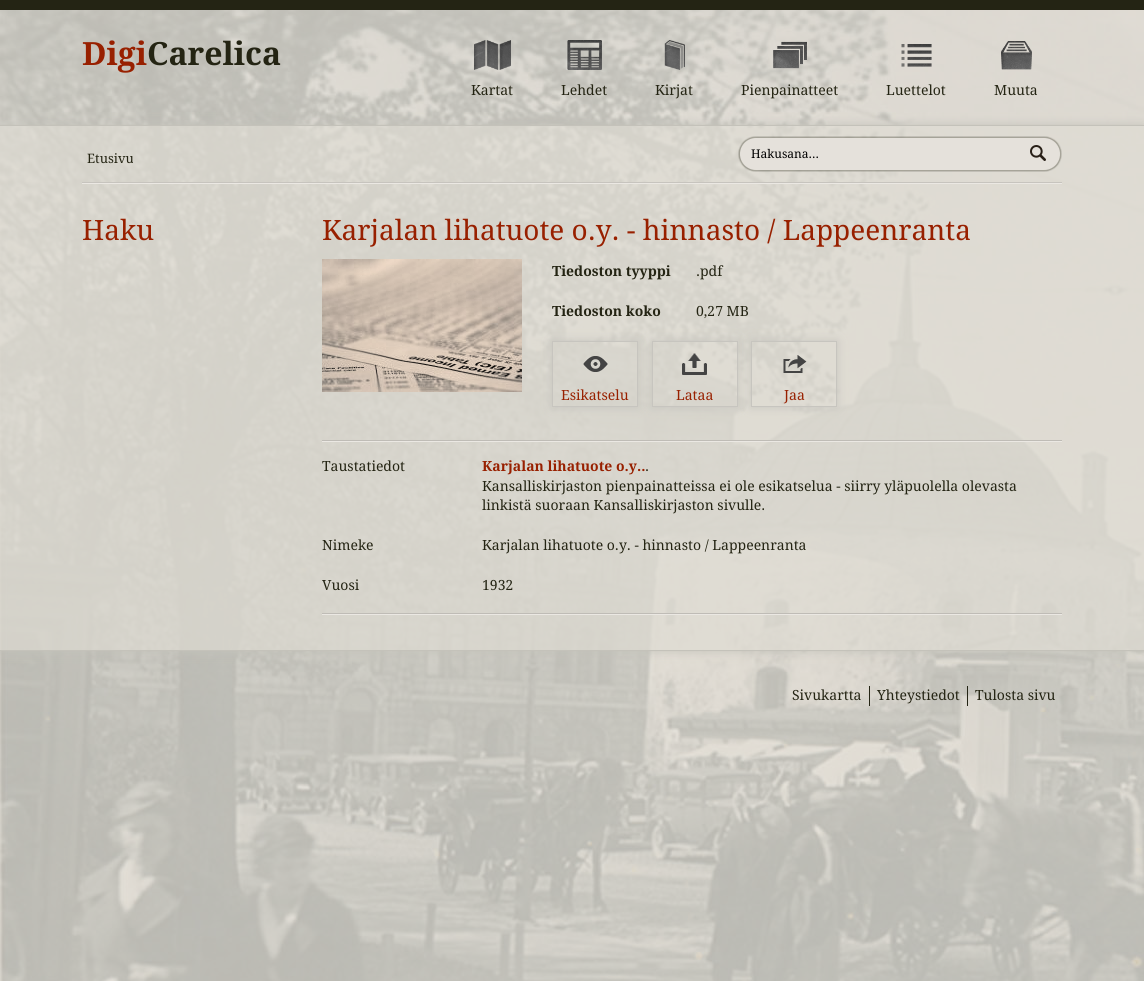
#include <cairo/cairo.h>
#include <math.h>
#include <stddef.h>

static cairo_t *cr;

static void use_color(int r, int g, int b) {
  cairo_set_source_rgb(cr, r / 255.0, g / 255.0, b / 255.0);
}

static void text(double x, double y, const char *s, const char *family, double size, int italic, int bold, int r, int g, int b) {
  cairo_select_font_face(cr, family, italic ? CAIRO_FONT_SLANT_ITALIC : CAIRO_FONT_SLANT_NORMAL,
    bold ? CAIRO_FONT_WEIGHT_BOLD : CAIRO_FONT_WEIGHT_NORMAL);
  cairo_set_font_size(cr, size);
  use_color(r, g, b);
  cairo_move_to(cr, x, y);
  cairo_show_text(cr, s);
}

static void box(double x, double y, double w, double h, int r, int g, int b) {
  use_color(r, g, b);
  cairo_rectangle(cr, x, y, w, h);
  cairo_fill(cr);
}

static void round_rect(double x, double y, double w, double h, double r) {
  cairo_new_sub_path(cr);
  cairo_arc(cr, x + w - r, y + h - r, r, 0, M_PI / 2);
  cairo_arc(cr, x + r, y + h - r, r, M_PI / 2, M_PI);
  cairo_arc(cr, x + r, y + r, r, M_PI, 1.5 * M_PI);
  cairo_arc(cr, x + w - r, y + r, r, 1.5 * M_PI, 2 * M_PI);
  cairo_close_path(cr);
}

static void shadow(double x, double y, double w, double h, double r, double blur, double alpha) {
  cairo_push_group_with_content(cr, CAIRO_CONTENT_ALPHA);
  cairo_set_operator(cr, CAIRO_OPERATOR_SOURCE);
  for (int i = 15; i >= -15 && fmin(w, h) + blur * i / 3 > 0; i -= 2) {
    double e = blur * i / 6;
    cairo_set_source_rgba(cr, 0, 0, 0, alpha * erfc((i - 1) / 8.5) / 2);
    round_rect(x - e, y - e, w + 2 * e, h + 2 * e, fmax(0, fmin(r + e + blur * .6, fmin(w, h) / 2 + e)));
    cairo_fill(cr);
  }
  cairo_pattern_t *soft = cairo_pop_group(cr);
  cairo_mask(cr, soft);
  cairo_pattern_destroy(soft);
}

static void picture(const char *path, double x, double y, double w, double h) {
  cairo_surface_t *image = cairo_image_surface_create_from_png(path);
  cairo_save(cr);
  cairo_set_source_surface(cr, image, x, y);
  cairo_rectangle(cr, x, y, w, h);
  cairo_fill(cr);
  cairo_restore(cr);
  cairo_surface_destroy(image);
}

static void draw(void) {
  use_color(255, 255, 255);
  cairo_paint(cr);
  box(0, 0, 1144, 10, 36, 36, 20);
  picture("img_01.png", 0, 10, 1144, 971);
  picture("img_02.png", 474, 40, 37, 30);
  picture("img_03.png", 566, 40, 36, 30);
  picture("img_04.png", 664, 40, 21, 30);
  picture("img_05.png", 773, 41, 34, 28);
  picture("img_06.png", 901, 44, 31, 23);
  picture("img_07.png", 1001, 41, 31, 29);
  cairo_save(cr);
  cairo_set_fill_rule(cr, CAIRO_FILL_RULE_EVEN_ODD);
  cairo_new_path(cr);
  cairo_move_to(cr, 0, 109);
  cairo_line_to(cr, 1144, 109);
  cairo_line_to(cr, 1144, 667);
  cairo_line_to(cr, 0, 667);
  cairo_close_path(cr);
  cairo_move_to(cr, 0, 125);
  cairo_line_to(cr, 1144, 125);
  cairo_line_to(cr, 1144, 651);
  cairo_line_to(cr, 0, 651);
  cairo_close_path(cr);
  cairo_clip(cr);
  use_color(196, 194, 186);
  shadow(0, 125, 1144, 526, 0, 5, 1);
  cairo_restore(cr);
  cairo_set_source_rgba(cr, 0.875, 0.863, 0.831, 0.68);
  cairo_rectangle(cr, 0, 126, 1144, 524);
  cairo_fill(cr);
  box(0, 125, 1144, 1, 196, 194, 186);
  box(0, 650, 1144, 1, 196, 194, 186);
  box(82, 182, 980, 1, 199, 196, 190);
  picture("img_08.png", 738, 136, 324, 36);
  box(82, 183, 980, 1, 235, 232, 227);
  picture("img_09.png", 322, 440, 740, 2);
  picture("img_10.png", 322, 259, 200, 133);
  cairo_save(cr);
  cairo_set_fill_rule(cr, CAIRO_FILL_RULE_EVEN_ODD);
  cairo_new_path(cr);
  cairo_move_to(cr, 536, 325);
  cairo_line_to(cr, 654, 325);
  cairo_line_to(cr, 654, 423);
  cairo_line_to(cr, 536, 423);
  cairo_close_path(cr);
  cairo_move_to(cr, 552, 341);
  cairo_line_to(cr, 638, 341);
  cairo_line_to(cr, 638, 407);
  cairo_line_to(cr, 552, 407);
  cairo_close_path(cr);
  cairo_clip(cr);
  use_color(199, 197, 191);
  shadow(552, 341, 86, 66, 0, 5, 1);
  cairo_restore(cr);
  cairo_rectangle(cr, 552.5, 341.5, 85, 65);
  use_color(199, 197, 191);
  cairo_set_line_width(cr, 1);
  cairo_stroke(cr);
  picture("img_11.png", 583, 356, 25, 16);
  cairo_save(cr);
  cairo_set_fill_rule(cr, CAIRO_FILL_RULE_EVEN_ODD);
  cairo_new_path(cr);
  cairo_move_to(cr, 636, 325);
  cairo_line_to(cr, 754, 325);
  cairo_line_to(cr, 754, 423);
  cairo_line_to(cr, 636, 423);
  cairo_close_path(cr);
  cairo_move_to(cr, 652, 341);
  cairo_line_to(cr, 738, 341);
  cairo_line_to(cr, 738, 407);
  cairo_line_to(cr, 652, 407);
  cairo_close_path(cr);
  cairo_clip(cr);
  use_color(199, 197, 191);
  shadow(652, 341, 86, 66, 0, 5, 1);
  cairo_restore(cr);
  cairo_rectangle(cr, 652.5, 341.5, 85, 65);
  cairo_stroke(cr);
  picture("img_12.png", 682, 353, 25, 22);
  cairo_save(cr);
  cairo_set_fill_rule(cr, CAIRO_FILL_RULE_EVEN_ODD);
  cairo_new_path(cr);
  cairo_move_to(cr, 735, 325);
  cairo_line_to(cr, 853, 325);
  cairo_line_to(cr, 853, 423);
  cairo_line_to(cr, 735, 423);
  cairo_close_path(cr);
  cairo_move_to(cr, 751, 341);
  cairo_line_to(cr, 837, 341);
  cairo_line_to(cr, 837, 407);
  cairo_line_to(cr, 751, 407);
  cairo_close_path(cr);
  cairo_clip(cr);
  use_color(199, 197, 191);
  shadow(751, 341, 86, 66, 0, 5, 1);
  cairo_restore(cr);
  cairo_rectangle(cr, 751.5, 341.5, 85, 65);
  cairo_stroke(cr);
  picture("img_13.png", 783, 355, 24, 18);
  picture("img_09.png", 322, 613, 740, 2);
  box(869, 686, 1, 20, 36, 36, 20);
  box(967, 686, 1, 20, 36, 36, 20);
  text(82, 65, "Digi", "Droid Serif", 32, 0, 1, 152, 32, 0);
  text(147, 65, "Carelica", "Droid Serif", 32, 0, 1, 36, 36, 19);
  text(471, 95, "Kartat", "Droid Serif", 14, 0, 0, 36, 36, 19);
  text(561, 95, "Lehdet", "Droid Serif", 14, 0, 0, 36, 36, 19);
  text(655, 95, "Kirjat", "Droid Serif", 14, 0, 0, 36, 36, 19);
  text(741, 95, "Pienpainatteet", "Droid Serif", 14, 0, 0, 36, 36, 19);
  text(886, 95, "Luettelot", "Droid Serif", 14, 0, 0, 36, 36, 19);
  text(994, 95, "Muuta", "Droid Serif", 14, 0, 0, 36, 36, 19);
  text(87, 163, "Etusivu", "Droid Serif", 13, 0, 0, 36, 36, 19);
  text(751, 158, "Hakusana...", "Droid Serif", 12, 0, 0, 0, 0, 0);
  text(82, 240, "Haku", "Droid Serif", 28, 0, 0, 152, 32, 0);
  text(322, 240, "Karjalan lihatuote o.y. - hinnasto / Lappeenranta", "Droid Serif", 28, 0, 0, 152, 32, 0);
  text(552, 276, "Tiedoston tyyppi", "Droid Serif", 14, 0, 1, 36, 36, 19);
  text(696, 276, ".pdf", "Droid Serif", 14, 0, 0, 36, 36, 19);
  text(552, 316, "Tiedoston koko", "Droid Serif", 14, 0, 1, 36, 36, 19);
  text(696, 316, "0,27 MB", "Droid Serif", 14, 0, 0, 36, 36, 19);
  text(561, 400, "Esikatselu", "Droid Serif", 14, 0, 0, 152, 32, 0);
  text(676, 400, "Lataa", "Droid Serif", 14, 0, 0, 152, 32, 0);
  text(784, 400, "Jaa", "Droid Serif", 14, 0, 0, 152, 32, 0);
  text(322, 471, "Taustatiedot", "Droid Serif", 14, 0, 0, 36, 36, 19);
  text(482, 471, "Karjalan lihatuote o.y..", "Droid Serif", 14, 0, 1, 152, 32, 0);
  text(645, 471, ".", "Droid Serif", 14, 0, 0, 36, 36, 19);
  text(482, 491, "Kansalliskirjaston pienpainatteissa ei ole esikatselua - siirry yläpuolella olevasta", "Droid Serif", 14, 0, 0, 36, 36, 19);
  text(482, 510, "linkistä suoraan Kansalliskirjaston sivulle.", "Droid Serif", 14, 0, 0, 36, 36, 19);
  text(322, 550, "Nimeke", "Droid Serif", 14, 0, 0, 36, 36, 19);
  text(482, 550, "Karjalan lihatuote o.y. - hinnasto / Lappeenranta", "Droid Serif", 14, 0, 0, 36, 36, 19);
  text(322, 590, "Vuosi", "Droid Serif", 14, 0, 0, 36, 36, 19);
  text(482, 590, "1932", "Droid Serif", 14, 0, 0, 36, 36, 19);
  text(792, 700, "Sivukartta", "Droid Serif", 14, 0, 0, 36, 36, 19);
  text(877, 700, "Yhteystiedot", "Droid Serif", 14, 0, 0, 36, 36, 19);
  text(975, 700, "Tulosta sivu", "Droid Serif", 14, 0, 0, 36, 36, 19);
}

int main(void) {
  cairo_surface_t *surface = cairo_image_surface_create(CAIRO_FORMAT_RGB24, 1144, 981);
  cr = cairo_create(surface);
  cairo_font_options_t *options = cairo_font_options_create();
  cairo_font_options_set_hint_metrics(options, CAIRO_HINT_METRICS_OFF);
  cairo_font_options_set_hint_style(options, CAIRO_HINT_STYLE_NONE);
  cairo_set_font_options(cr, options);
  cairo_set_miter_limit(cr, 4);
  draw();
  cairo_surface_write_to_png(surface, "out.png");
  cairo_font_options_destroy(options);
  cairo_destroy(cr);
  cairo_surface_destroy(surface);
  return 0;
}
